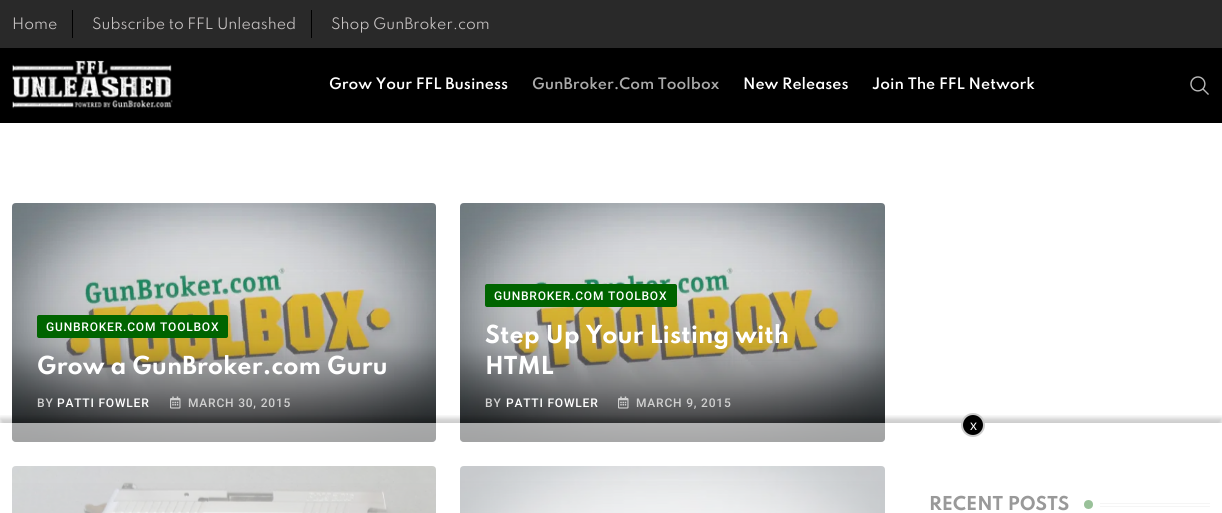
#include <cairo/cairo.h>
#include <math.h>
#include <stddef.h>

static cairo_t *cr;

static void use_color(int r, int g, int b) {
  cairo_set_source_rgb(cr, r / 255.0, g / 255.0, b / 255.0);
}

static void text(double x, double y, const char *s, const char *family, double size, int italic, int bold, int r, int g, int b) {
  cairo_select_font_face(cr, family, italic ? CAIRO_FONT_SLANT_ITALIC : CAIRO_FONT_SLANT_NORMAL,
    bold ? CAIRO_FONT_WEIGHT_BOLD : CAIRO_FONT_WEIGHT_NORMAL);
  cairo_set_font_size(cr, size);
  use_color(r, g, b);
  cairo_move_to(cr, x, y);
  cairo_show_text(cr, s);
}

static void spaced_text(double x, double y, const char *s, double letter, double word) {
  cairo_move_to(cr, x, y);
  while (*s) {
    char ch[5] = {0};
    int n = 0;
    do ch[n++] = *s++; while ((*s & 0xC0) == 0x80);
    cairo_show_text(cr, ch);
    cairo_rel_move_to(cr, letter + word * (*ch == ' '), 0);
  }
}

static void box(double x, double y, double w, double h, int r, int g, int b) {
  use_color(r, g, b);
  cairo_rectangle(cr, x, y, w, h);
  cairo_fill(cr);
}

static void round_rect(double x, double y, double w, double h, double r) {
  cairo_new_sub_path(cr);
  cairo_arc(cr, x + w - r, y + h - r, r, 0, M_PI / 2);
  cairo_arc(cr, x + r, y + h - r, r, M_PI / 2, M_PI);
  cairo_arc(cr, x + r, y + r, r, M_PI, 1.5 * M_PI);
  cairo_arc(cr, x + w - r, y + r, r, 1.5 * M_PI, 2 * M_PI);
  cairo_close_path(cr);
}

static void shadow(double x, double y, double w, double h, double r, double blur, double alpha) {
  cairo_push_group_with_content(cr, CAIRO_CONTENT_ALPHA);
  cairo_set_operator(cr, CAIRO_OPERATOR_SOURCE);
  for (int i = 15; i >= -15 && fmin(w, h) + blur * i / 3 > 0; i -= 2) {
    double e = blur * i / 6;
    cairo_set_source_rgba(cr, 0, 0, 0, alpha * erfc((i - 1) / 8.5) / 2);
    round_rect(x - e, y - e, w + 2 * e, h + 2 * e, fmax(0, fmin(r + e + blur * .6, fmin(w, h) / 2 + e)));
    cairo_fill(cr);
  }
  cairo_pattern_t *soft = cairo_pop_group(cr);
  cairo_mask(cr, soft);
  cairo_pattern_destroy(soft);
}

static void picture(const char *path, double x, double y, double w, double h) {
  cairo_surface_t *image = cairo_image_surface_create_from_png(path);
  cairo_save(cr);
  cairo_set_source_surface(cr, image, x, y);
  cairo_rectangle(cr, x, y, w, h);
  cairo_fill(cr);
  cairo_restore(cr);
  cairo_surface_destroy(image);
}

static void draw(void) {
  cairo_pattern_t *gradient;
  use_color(255, 255, 255);
  cairo_paint(cr);
  box(0, 48, 1222, 75, 0, 0, 0);
  box(0, 0, 1222, 48, 41, 41, 41);
  box(72, 10, 1, 28, 0, 0, 0);
  box(311, 10, 1, 28, 0, 0, 0);
  picture("img_01.png", 12, 60, 161, 49);
  picture("img_02.png", 1190, 76, 19, 19);
  picture("img_03.png", 12, 203, 424, 239);
  gradient = cairo_pattern_create_linear(224, 203, 224, 442);
  cairo_pattern_add_color_stop_rgba(gradient, 0, 0, 0, 0, 0);
  cairo_pattern_add_color_stop_rgba(gradient, 0.59, 0, 0, 0, 0.2);
  cairo_pattern_add_color_stop_rgba(gradient, 1, 0, 0, 0, 0.8);
  cairo_set_source(cr, gradient);
  cairo_pattern_destroy(gradient);
  round_rect(12, 203, 424, 239, 4);
  cairo_fill(cr);
  use_color(0, 100, 0);
  round_rect(37, 315, 191, 23, 2);
  cairo_fill(cr);
  picture("img_04.png", 170, 396, 11, 13);
  picture("img_05.png", 460, 203, 425, 239);
  gradient = cairo_pattern_create_linear(673, 203, 673, 442);
  cairo_pattern_add_color_stop_rgba(gradient, 0, 0, 0, 0, 0);
  cairo_pattern_add_color_stop_rgba(gradient, 0.59, 0, 0, 0, 0.2);
  cairo_pattern_add_color_stop_rgba(gradient, 1, 0, 0, 0, 0.8);
  cairo_set_source(cr, gradient);
  cairo_pattern_destroy(gradient);
  round_rect(460, 203, 425, 239, 4);
  cairo_fill(cr);
  use_color(0, 100, 0);
  round_rect(485, 284, 192, 23, 2);
  cairo_fill(cr);
  picture("img_04.png", 618, 396, 11, 13);
  picture("img_06.png", 12, 466, 424, 47);
  gradient = cairo_pattern_create_linear(224, 466, 224, 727);
  cairo_pattern_add_color_stop_rgba(gradient, 0, 0, 0, 0, 0);
  cairo_pattern_add_color_stop_rgba(gradient, 0.59, 0, 0, 0, 0.2);
  cairo_pattern_add_color_stop_rgba(gradient, 1, 0, 0, 0, 0.8);
  cairo_set_source(cr, gradient);
  cairo_pattern_destroy(gradient);
  cairo_rectangle(cr, 12, 483, 424, 30);
  cairo_fill(cr);
  picture("img_07.png", 460, 466, 425, 47);
  gradient = cairo_pattern_create_linear(673, 466, 673, 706);
  cairo_pattern_add_color_stop_rgba(gradient, 0, 0, 0, 0, 0);
  cairo_pattern_add_color_stop_rgba(gradient, 0.59, 0, 0, 0, 0.2);
  cairo_pattern_add_color_stop_rgba(gradient, 1, 0, 0, 0, 0.8);
  cairo_set_source(cr, gradient);
  cairo_pattern_destroy(gradient);
  cairo_rectangle(cr, 460, 481, 425, 32);
  cairo_fill(cr);
  use_color(0, 100, 0);
  cairo_arc(cr, 1088.5, 504.5, 4.5, 0, 2 * M_PI);
  cairo_fill(cr);
  box(1100, 503, 110, 1, 229, 229, 229);
  box(1100, 506, 110, 1, 229, 229, 229);
  cairo_save(cr);
  cairo_rectangle(cr, 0, 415, 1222, 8);
  cairo_clip(cr);
  use_color(0, 0, 0);
  shadow(0, 418, 1222, 90, 0, 2.5, 0.2);
  cairo_restore(cr);
  text(12, 29, "Home", "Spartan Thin", 14, 0, 0, 199, 195, 195);
  text(92, 29, "Subscribe to FFL Unleashed", "Spartan Thin", 14, 0, 0, 199, 195, 195);
  text(331, 29, "Shop GunBroker.com", "Spartan Thin", 14, 0, 0, 199, 195, 195);
  text(329, 89, "Grow Your FFL Business", "Spartan Thin SemiBold", 14, 0, 0, 255, 255, 255);
  text(532, 89, "GunBroker.Com Toolbox", "Spartan Thin SemiBold", 14, 0, 0, 170, 170, 170);
  text(743, 89, "New Releases", "Spartan Thin SemiBold", 14, 0, 0, 255, 255, 255);
  text(872, 89, "Join The FFL Network", "Spartan Thin SemiBold", 14, 0, 0, 255, 255, 255);
  cairo_select_font_face(cr, "Roboto Medium", CAIRO_FONT_SLANT_NORMAL, CAIRO_FONT_WEIGHT_NORMAL);
  cairo_set_font_size(cr, 12);
  spaced_text(46, 331, "GUNBROKER.COM TOOLBOX", 0.8, 0);
  text(37, 374, "Grow a GunBroker.com Guru", "Spartan Thin", 22, 0, 1, 255, 255, 255);
  cairo_select_font_face(cr, "Roboto Medium", CAIRO_FONT_SLANT_NORMAL, CAIRO_FONT_WEIGHT_NORMAL);
  cairo_set_font_size(cr, 12);
  use_color(208, 208, 208);
  spaced_text(37, 407, "BY", 0.8, 0);
  use_color(255, 255, 255);
  spaced_text(57, 407, "PATTI FOWLER", 0.8, 0);
  use_color(208, 208, 208);
  spaced_text(188, 407, "MARCH 30, 2015", 0.8, 0);
  use_color(255, 255, 255);
  spaced_text(494, 300, "GUNBROKER.COM TOOLBOX", 0.8, 0);
  text(485, 343, "Step Up Your Listing with", "Spartan Thin", 22, 0, 1, 255, 255, 255);
  text(485, 374, "HTML", "Spartan Thin", 22, 0, 1, 255, 255, 255);
  cairo_select_font_face(cr, "Roboto Medium", CAIRO_FONT_SLANT_NORMAL, CAIRO_FONT_WEIGHT_NORMAL);
  cairo_set_font_size(cr, 12);
  use_color(208, 208, 208);
  spaced_text(485, 407, "BY", 0.8, 0);
  use_color(255, 255, 255);
  spaced_text(506, 407, "PATTI FOWLER", 0.8, 0);
  use_color(208, 208, 208);
  spaced_text(636, 407, "MARCH 9, 2015", 0.8, 0);
  text(929, 510, "RECENT POSTS", "Spartan Thin", 17, 0, 1, 0, 0, 0);
  cairo_set_source_rgba(cr, 1, 1, 1, 0.6);
  cairo_rectangle(cr, 12, 423, 1198, 90);
  cairo_fill(cr);
  use_color(0, 0, 0);
  cairo_arc(cr, 973, 425, 11, 0, 2 * M_PI);
  cairo_fill_preserve(cr);
  use_color(204, 204, 204);
  cairo_stroke(cr);
  text(970, 430, "x", "Liberation Sans", 14, 0, 0, 255, 255, 255);
}

int main(void) {
  cairo_surface_t *surface = cairo_image_surface_create(CAIRO_FORMAT_RGB24, 1222, 513);
  cr = cairo_create(surface);
  cairo_font_options_t *options = cairo_font_options_create();
  cairo_font_options_set_hint_metrics(options, CAIRO_HINT_METRICS_OFF);
  cairo_font_options_set_hint_style(options, CAIRO_HINT_STYLE_NONE);
  cairo_set_font_options(cr, options);
  cairo_set_miter_limit(cr, 4);
  draw();
  cairo_surface_write_to_png(surface, "out.png");
  cairo_font_options_destroy(options);
  cairo_destroy(cr);
  cairo_surface_destroy(surface);
  return 0;
}
